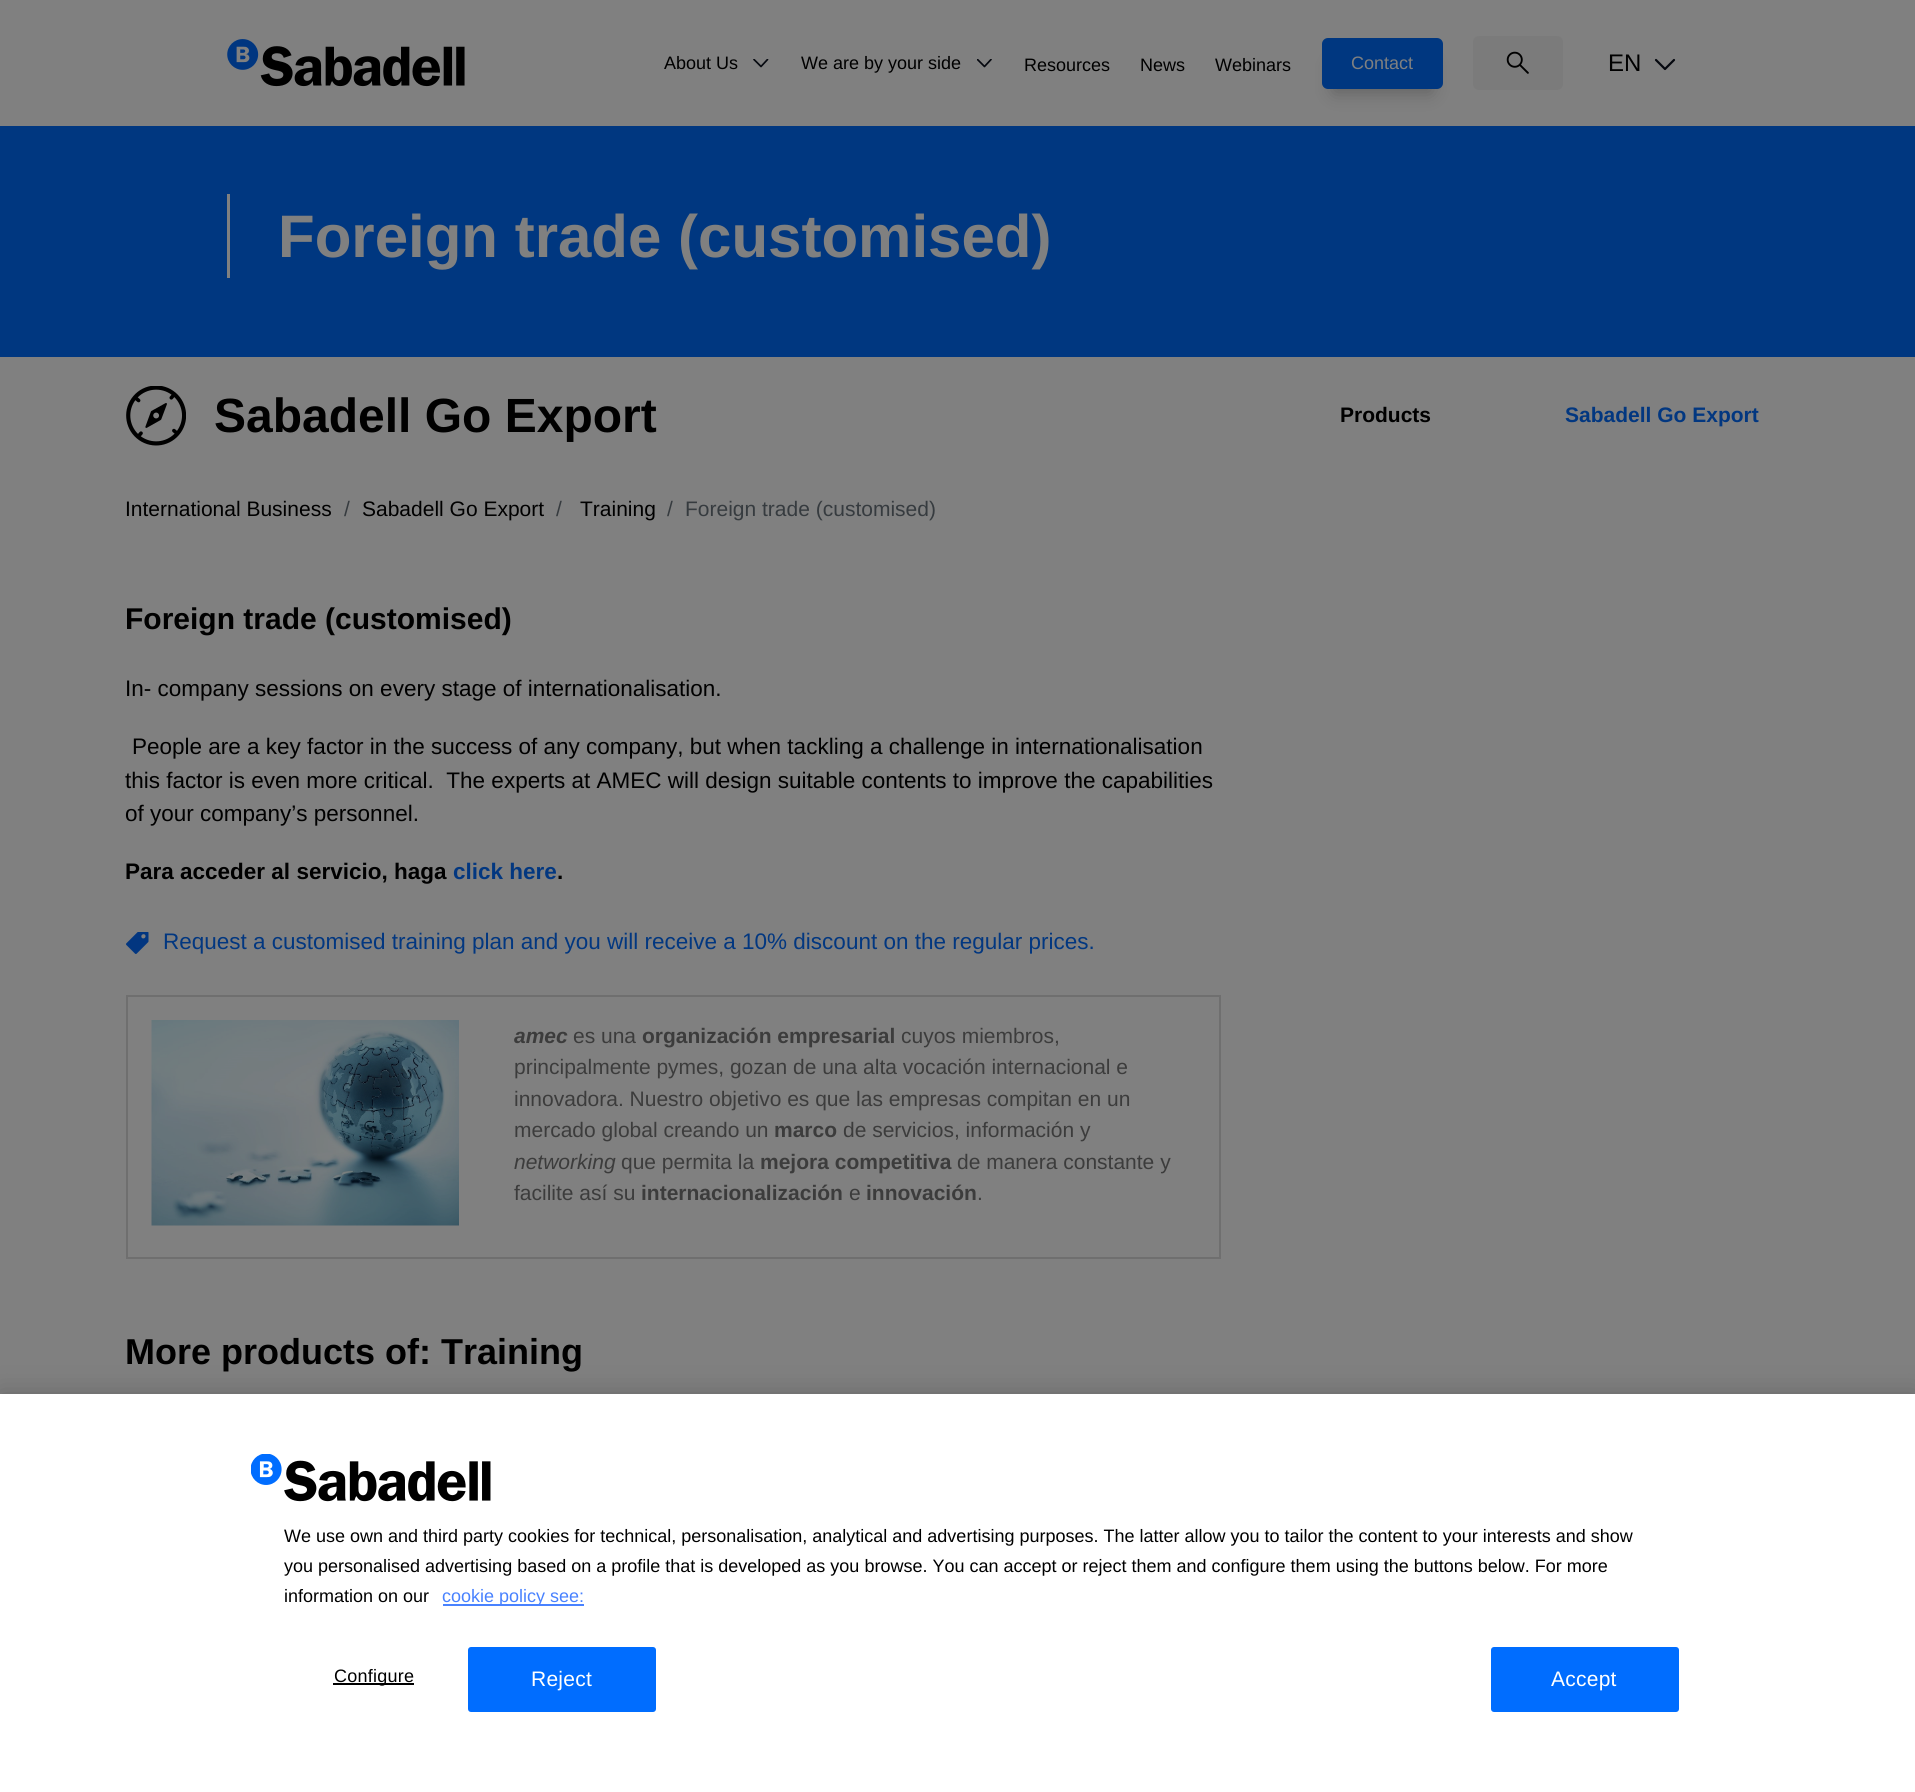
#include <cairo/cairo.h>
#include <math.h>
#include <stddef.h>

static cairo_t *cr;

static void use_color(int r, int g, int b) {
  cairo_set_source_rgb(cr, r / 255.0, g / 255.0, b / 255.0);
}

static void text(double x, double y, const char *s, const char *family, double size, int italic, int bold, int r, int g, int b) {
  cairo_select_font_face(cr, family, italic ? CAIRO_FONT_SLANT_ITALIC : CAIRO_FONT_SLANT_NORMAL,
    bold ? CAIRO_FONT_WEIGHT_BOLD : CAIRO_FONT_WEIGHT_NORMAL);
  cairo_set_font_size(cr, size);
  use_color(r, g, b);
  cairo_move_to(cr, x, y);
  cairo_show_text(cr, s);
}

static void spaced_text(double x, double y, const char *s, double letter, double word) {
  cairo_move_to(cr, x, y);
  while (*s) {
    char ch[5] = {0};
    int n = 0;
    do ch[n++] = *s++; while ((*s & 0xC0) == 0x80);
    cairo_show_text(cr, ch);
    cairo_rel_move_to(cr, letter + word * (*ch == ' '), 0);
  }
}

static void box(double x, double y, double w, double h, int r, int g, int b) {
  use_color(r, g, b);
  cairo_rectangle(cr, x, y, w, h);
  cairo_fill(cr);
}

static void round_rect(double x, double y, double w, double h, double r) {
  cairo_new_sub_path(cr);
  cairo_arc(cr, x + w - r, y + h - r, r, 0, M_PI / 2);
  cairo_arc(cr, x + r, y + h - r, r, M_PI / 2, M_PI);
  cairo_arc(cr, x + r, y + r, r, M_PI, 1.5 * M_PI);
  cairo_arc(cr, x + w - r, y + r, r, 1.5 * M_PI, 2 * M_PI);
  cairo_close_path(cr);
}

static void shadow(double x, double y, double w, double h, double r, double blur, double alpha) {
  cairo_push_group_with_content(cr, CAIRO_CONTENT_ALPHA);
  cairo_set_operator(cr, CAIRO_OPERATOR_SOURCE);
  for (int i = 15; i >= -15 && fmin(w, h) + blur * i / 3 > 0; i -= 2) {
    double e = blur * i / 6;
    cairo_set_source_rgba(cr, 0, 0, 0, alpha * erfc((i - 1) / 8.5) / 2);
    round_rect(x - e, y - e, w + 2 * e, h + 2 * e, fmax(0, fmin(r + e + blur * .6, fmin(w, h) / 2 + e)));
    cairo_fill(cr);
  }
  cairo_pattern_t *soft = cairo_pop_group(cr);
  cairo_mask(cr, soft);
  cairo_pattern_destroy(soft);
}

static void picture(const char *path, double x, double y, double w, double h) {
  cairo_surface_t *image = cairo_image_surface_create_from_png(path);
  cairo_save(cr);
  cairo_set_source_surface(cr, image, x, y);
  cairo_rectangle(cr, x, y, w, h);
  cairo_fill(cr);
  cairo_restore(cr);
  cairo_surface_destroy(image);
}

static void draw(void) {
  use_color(128, 128, 128);
  cairo_paint(cr);
  picture("img_01.png", 227, 39, 238, 48);
  cairo_save(cr);
  cairo_rectangle(cr, 753, 59, 17, 9);
  cairo_clip(cr);
  cairo_new_path(cr);
  cairo_move_to(cr, 754, 59.5);
  cairo_line_to(cr, 761, 66.5);
  cairo_line_to(cr, 767.5, 59.5);
  use_color(5, 8, 15);
  cairo_set_line_width(cr, 1.7);
  cairo_set_line_cap(cr, CAIRO_LINE_CAP_ROUND);
  cairo_set_line_join(cr, CAIRO_LINE_JOIN_ROUND);
  cairo_stroke(cr);
  cairo_restore(cr);
  cairo_save(cr);
  cairo_rectangle(cr, 977, 59, 16, 9);
  cairo_clip(cr);
  cairo_new_path(cr);
  cairo_move_to(cr, 977.5, 59.5);
  cairo_line_to(cr, 984.5, 66.5);
  cairo_line_to(cr, 991, 59.5);
  use_color(5, 8, 15);
  cairo_set_line_width(cr, 1.7);
  cairo_set_line_cap(cr, CAIRO_LINE_CAP_ROUND);
  cairo_set_line_join(cr, CAIRO_LINE_JOIN_ROUND);
  cairo_stroke(cr);
  cairo_restore(cr);
  use_color(0, 0, 0);
  shadow(1334, 65, 97, 27, 0, 9, 0.25);
  use_color(0, 55, 128);
  round_rect(1322, 38, 121, 51, 6);
  cairo_fill(cr);
  use_color(123, 123, 123);
  round_rect(1473, 36, 90, 54, 6);
  cairo_fill(cr);
  picture("img_02.png", 1506, 51, 23, 23);
  cairo_new_path(cr);
  cairo_move_to(cr, 1656, 60);
  cairo_line_to(cr, 1665, 69);
  cairo_line_to(cr, 1674, 60);
  use_color(5, 8, 15);
  cairo_set_line_width(cr, 2.2);
  cairo_set_line_cap(cr, CAIRO_LINE_CAP_ROUND);
  cairo_set_line_join(cr, CAIRO_LINE_JOIN_ROUND);
  cairo_stroke(cr);
  box(0, 126, 1915, 231, 0, 55, 128);
  box(227, 194, 3, 84, 128, 128, 128);
  picture("img_03.png", 126, 386, 60, 60);
  picture("img_04.png", 126, 932, 23, 22);
  cairo_rectangle(cr, 127, 996, 1093, 262);
  use_color(111, 111, 111);
  cairo_set_line_width(cr, 2);
  cairo_set_line_cap(cr, CAIRO_LINE_CAP_BUTT);
  cairo_set_line_join(cr, CAIRO_LINE_JOIN_MITER);
  cairo_stroke(cr);
  picture("img_05.png", 151, 1020, 308, 206);
  use_color(0, 0, 0);
  shadow(0, 1394, 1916, 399, 0, 13.5, 0.2);
  box(0, 1394, 1915, 398, 255, 255, 255);
  picture("img_06.png", 251, 1454, 240, 48);
  box(443, 1604, 141, 2, 73, 130, 255);
  box(333, 1683, 81, 2, 0, 0, 0);
  use_color(0, 109, 255);
  round_rect(469, 1648, 186, 63, 2);
  cairo_fill_preserve(cr);
  cairo_stroke(cr);
  round_rect(1492, 1648, 186, 63, 2);
  cairo_fill_preserve(cr);
  cairo_stroke(cr);
  text(664, 69, "About Us", "Liberation Sans", 18, 0, 0, 0, 0, 0);
  text(801, 69, "We are by your side", "Liberation Sans", 18, 0, 0, 0, 0, 0);
  text(1024, 71, "Resources", "Liberation Sans", 18, 0, 0, 0, 0, 0);
  text(1140, 71, "News", "Liberation Sans", 18, 0, 0, 0, 0, 0);
  text(1215, 71, "Webinars", "Liberation Sans", 18, 0, 0, 0, 0, 0);
  text(1351, 69, "Contact", "Liberation Sans", 18, 0, 0, 128, 128, 128);
  text(1608, 71, "EN", "Liberation Sans", 24, 0, 0, 0, 0, 0);
  text(278, 257, "Foreign trade (customised)", "Liberation Sans", 60, 0, 1, 128, 128, 128);
  text(214, 432, "Sabadell Go Export", "Liberation Sans", 48, 0, 1, 0, 0, 0);
  text(1340, 422, "Products", "Liberation Sans", 21, 0, 1, 0, 0, 0);
  text(1565, 422, "Sabadell Go Export", "Liberation Sans", 21, 0, 1, 2, 55, 128);
  text(125, 516, "International Business", "Liberation Sans", 21, 0, 0, 0, 0, 0);
  text(344, 516, "/", "Liberation Sans", 21, 0, 0, 54, 59, 63);
  text(362, 516, "Sabadell Go Export", "Liberation Sans", 21, 0, 0, 0, 0, 0);
  text(556, 516, "/", "Liberation Sans", 21, 0, 0, 54, 59, 63);
  text(580, 516, "Training", "Liberation Sans", 21, 0, 0, 0, 0, 0);
  text(667, 516, "/", "Liberation Sans", 21, 0, 0, 54, 59, 63);
  text(685, 516, "Foreign trade (customised)", "Liberation Sans", 21, 0, 0, 54, 59, 63);
  text(125, 629, "Foreign trade (customised)", "Liberation Sans", 30, 0, 1, 0, 0, 0);
  text(125, 696, "In- company sessions on every stage of internationalisation.", "Liberation Sans", 22.5, 0, 0, 0, 0, 0);
  text(132, 754, "People are a key factor in the success of any company, but when tackling a challenge in internationalisation", "Liberation Sans", 22.5, 0, 0, 0, 0, 0);
  text(125, 788, "this factor is even more critical.  The experts at AMEC will design suitable contents to improve the capabilities", "Liberation Sans", 22.5, 0, 0, 0, 0, 0);
  text(125, 821, "of your company’s personnel.", "Liberation Sans", 22.5, 0, 0, 0, 0, 0);
  text(125, 879, "Para acceder al servicio, haga", "Liberation Sans", 22.5, 0, 1, 0, 0, 0);
  text(453, 879, "click here", "Liberation Sans", 22.5, 0, 1, 2, 55, 128);
  text(557, 879, ".", "Liberation Sans", 22.5, 0, 1, 0, 0, 0);
  text(163, 949, "Request a customised training plan and you will receive a 10% discount on the regular prices.", "Liberation Sans", 22.5, 0, 0, 2, 55, 128);
  text(514, 1043, "amec", "Liberation Sans", 21, 1, 1, 60, 60, 60);
  text(573, 1043, "es una", "Liberation Sans", 21, 0, 0, 60, 60, 60);
  text(642, 1043, "organización empresarial", "Liberation Sans", 21, 0, 1, 60, 60, 60);
  text(901, 1043, "cuyos miembros,", "Liberation Sans", 21, 0, 0, 60, 60, 60);
  text(514, 1074, "principalmente pymes, gozan de una alta vocación internacional e", "Liberation Sans", 21, 0, 0, 60, 60, 60);
  text(514, 1106, "innovadora. Nuestro objetivo es que las empresas compitan en un", "Liberation Sans", 21, 0, 0, 60, 60, 60);
  text(514, 1137, "mercado global creando un", "Liberation Sans", 21, 0, 0, 60, 60, 60);
  text(774, 1137, "marco", "Liberation Sans", 21, 0, 1, 60, 60, 60);
  text(843, 1137, "de servicios, información y", "Liberation Sans", 21, 0, 0, 60, 60, 60);
  text(514, 1169, "networking", "Liberation Sans", 21, 1, 0, 60, 60, 60);
  text(621, 1169, "que permita la", "Liberation Sans", 21, 0, 0, 60, 60, 60);
  text(760, 1169, "mejora competitiva", "Liberation Sans", 21, 0, 1, 60, 60, 60);
  text(957, 1169, "de manera constante y", "Liberation Sans", 21, 0, 0, 60, 60, 60);
  text(514, 1200, "facilite así su", "Liberation Sans", 21, 0, 0, 60, 60, 60);
  text(641, 1200, "internacionalización", "Liberation Sans", 21, 0, 1, 60, 60, 60);
  text(849, 1200, "e", "Liberation Sans", 21, 0, 0, 60, 60, 60);
  text(866, 1200, "innovación", "Liberation Sans", 21, 0, 1, 60, 60, 60);
  text(977, 1200, ".", "Liberation Sans", 21, 0, 0, 60, 60, 60);
  text(125, 1364, "More products of: Training", "Liberation Sans", 36, 0, 1, 0, 0, 0);
  text(284, 1542, "We use own and third party cookies for technical, personalisation, analytical and advertising purposes. The latter allow you to tailor the content to your interests and show", "Liberation Sans", 18, 0, 0, 0, 0, 0);
  text(284, 1572, "you personalised advertising based on a profile that is developed as you browse. You can accept or reject them and configure them using the buttons below. For more", "Liberation Sans", 18, 0, 0, 0, 0, 0);
  text(284, 1602, "information on our", "Liberation Sans", 18, 0, 0, 0, 0, 0);
  text(442, 1602, "cookie policy see:", "Liberation Sans", 18, 0, 0, 73, 130, 255);
  use_color(0, 0, 0);
  spaced_text(334, 1682, "Configure", 0.25, 0);
  cairo_set_font_size(cr, 21);
  use_color(255, 255, 255);
  spaced_text(531, 1686, "Reject", 0.25, 0);
  spaced_text(1551, 1686, "Accept", 0.25, 0);
}

int main(void) {
  cairo_surface_t *surface = cairo_image_surface_create(CAIRO_FORMAT_RGB24, 1915, 1792);
  cr = cairo_create(surface);
  cairo_font_options_t *options = cairo_font_options_create();
  cairo_font_options_set_hint_metrics(options, CAIRO_HINT_METRICS_OFF);
  cairo_font_options_set_hint_style(options, CAIRO_HINT_STYLE_NONE);
  cairo_set_font_options(cr, options);
  cairo_set_miter_limit(cr, 4);
  draw();
  cairo_surface_write_to_png(surface, "out.png");
  cairo_font_options_destroy(options);
  cairo_destroy(cr);
  cairo_surface_destroy(surface);
  return 0;
}
